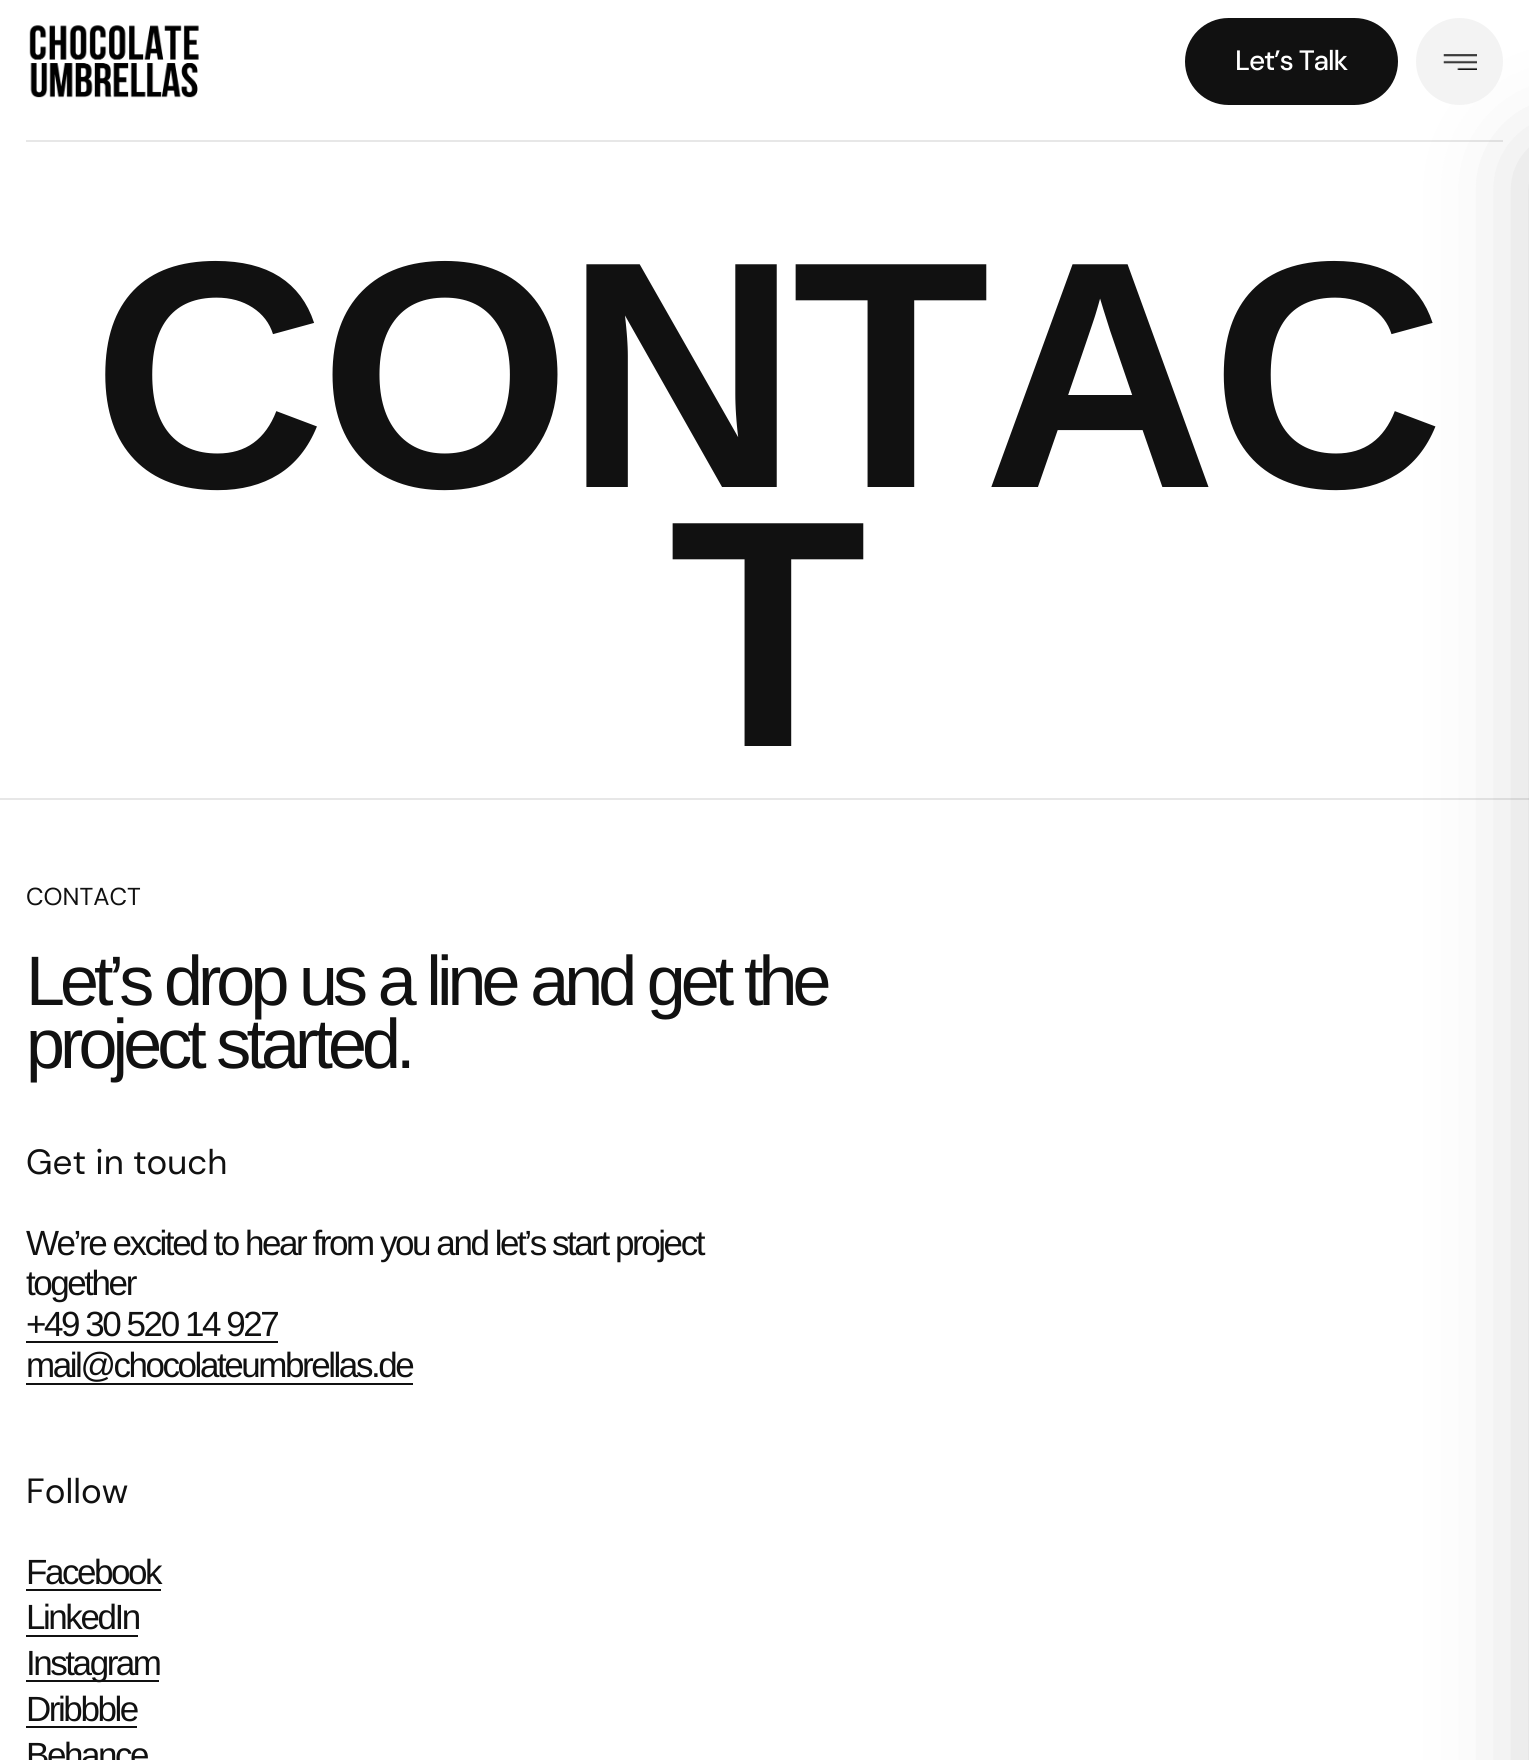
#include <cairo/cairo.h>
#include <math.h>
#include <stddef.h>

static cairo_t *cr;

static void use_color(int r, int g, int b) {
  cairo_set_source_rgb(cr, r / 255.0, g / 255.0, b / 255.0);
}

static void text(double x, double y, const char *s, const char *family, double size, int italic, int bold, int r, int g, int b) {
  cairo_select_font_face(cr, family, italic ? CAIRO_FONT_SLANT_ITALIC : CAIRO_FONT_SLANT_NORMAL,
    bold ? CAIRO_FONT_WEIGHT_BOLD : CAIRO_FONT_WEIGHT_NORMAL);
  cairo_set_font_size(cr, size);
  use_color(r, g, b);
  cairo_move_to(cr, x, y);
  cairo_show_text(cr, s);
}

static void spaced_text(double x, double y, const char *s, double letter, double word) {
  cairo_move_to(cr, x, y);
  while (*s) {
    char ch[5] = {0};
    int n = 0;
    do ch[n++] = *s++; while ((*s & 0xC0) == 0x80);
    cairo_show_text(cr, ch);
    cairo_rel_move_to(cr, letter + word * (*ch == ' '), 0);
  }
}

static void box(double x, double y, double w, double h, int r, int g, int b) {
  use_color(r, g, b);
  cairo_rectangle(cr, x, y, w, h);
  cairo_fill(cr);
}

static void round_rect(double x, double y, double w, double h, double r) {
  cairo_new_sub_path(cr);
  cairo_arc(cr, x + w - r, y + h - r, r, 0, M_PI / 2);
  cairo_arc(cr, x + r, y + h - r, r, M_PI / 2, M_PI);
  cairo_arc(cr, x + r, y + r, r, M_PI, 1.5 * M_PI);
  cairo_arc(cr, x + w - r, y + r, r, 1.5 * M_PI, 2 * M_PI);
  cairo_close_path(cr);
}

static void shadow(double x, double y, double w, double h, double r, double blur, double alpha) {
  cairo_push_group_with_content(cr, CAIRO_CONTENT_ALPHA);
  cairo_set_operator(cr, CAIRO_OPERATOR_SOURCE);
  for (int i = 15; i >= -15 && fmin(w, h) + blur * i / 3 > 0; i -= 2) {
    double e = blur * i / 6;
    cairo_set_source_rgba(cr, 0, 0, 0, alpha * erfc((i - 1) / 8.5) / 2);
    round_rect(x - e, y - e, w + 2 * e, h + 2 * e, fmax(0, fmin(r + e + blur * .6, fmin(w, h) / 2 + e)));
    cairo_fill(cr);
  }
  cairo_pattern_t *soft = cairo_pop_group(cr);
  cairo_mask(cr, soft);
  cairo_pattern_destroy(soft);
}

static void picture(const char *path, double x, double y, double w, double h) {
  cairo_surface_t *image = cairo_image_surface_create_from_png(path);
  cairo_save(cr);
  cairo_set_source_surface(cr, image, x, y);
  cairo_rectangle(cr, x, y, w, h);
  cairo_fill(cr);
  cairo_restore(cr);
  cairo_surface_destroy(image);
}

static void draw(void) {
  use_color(255, 255, 255);
  cairo_paint(cr);
  box(0, 798, 1529, 2, 231, 231, 231);
  use_color(0, 0, 0);
  shadow(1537, 158, 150, 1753, 0, 52.5, 0.2);
  cairo_set_source_rgba(cr, 0.067, 0.067, 0.067, 0.1);
  cairo_rectangle(cr, 26, 140, 1477, 2);
  cairo_fill(cr);
  picture("img_01.png", 29, 25, 170, 73);
  use_color(17, 17, 17);
  round_rect(1186, 19, 211, 85, 42.5);
  cairo_fill_preserve(cr);
  cairo_stroke(cr);
  use_color(243, 243, 243);
  cairo_arc(cr, 1459.5, 61.5, 43.5, 0, 2 * M_PI);
  cairo_fill(cr);
  picture("img_02.png", 1443, 54, 34, 16);
  box(26, 1341, 252, 2, 17, 17, 17);
  box(26, 1383, 387, 2, 17, 17, 17);
  box(26, 1589, 135, 2, 17, 17, 17);
  box(26, 1635, 112, 2, 17, 17, 17);
  box(26, 1680, 133, 2, 17, 17, 17);
  box(26, 1726, 111, 2, 17, 17, 17);
  cairo_select_font_face(cr, "DM Sans Medium", CAIRO_FONT_SLANT_NORMAL, CAIRO_FONT_WEIGHT_NORMAL);
  cairo_set_font_size(cr, 28);
  use_color(255, 255, 255);
  spaced_text(1235, 70, "Let’s Talk", -1.1, 0);
  cairo_select_font_face(cr, "Liberation Sans", CAIRO_FONT_SLANT_NORMAL, CAIRO_FONT_WEIGHT_BOLD);
  cairo_set_font_size(cr, 323.75);
  use_color(17, 17, 17);
  spaced_text(92, 487, "CONTAC", -6.5, 0);
  spaced_text(669, 746, "T", -6.5, 0);
  text(26, 905, "CONTACT", "DM Sans", 24.5, 0, 0, 17, 17, 17);
  cairo_select_font_face(cr, "Liberation Sans", CAIRO_FONT_SLANT_NORMAL, CAIRO_FONT_WEIGHT_NORMAL);
  cairo_set_font_size(cr, 70);
  spaced_text(26, 1005, "Let’s drop us a line and get the", -4.9, 0);
  spaced_text(26, 1068, "project started.", -4.9, 0);
  text(26, 1174, "Get in touch", "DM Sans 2", 35, 0, 0, 17, 17, 17);
  cairo_select_font_face(cr, "Liberation Sans", CAIRO_FONT_SLANT_NORMAL, CAIRO_FONT_WEIGHT_NORMAL);
  spaced_text(26, 1255, "We’re excited to hear from you and let’s start project", -2.45, 0);
  spaced_text(26, 1295, "together", -2.45, 0);
  spaced_text(26, 1336, "+49 30 520 14 927", -2.45, 0);
  spaced_text(26, 1377, "mail@chocolateumbrellas.de", -2.45, 0);
  text(26, 1503, "Follow", "DM Sans 2", 35, 0, 0, 17, 17, 17);
  cairo_select_font_face(cr, "Liberation Sans", CAIRO_FONT_SLANT_NORMAL, CAIRO_FONT_WEIGHT_NORMAL);
  spaced_text(26, 1584, "Facebook", -2.45, 0);
  spaced_text(26, 1629, "LinkedIn", -2.45, 0);
  spaced_text(26, 1675, "Instagram", -2.45, 0);
  spaced_text(26, 1721, "Dribbble", -2.45, 0);
  spaced_text(26, 1767, "Behance", -2.45, 0);
}

int main(void) {
  cairo_surface_t *surface = cairo_image_surface_create(CAIRO_FORMAT_RGB24, 1529, 1760);
  cr = cairo_create(surface);
  cairo_font_options_t *options = cairo_font_options_create();
  cairo_font_options_set_hint_metrics(options, CAIRO_HINT_METRICS_OFF);
  cairo_font_options_set_hint_style(options, CAIRO_HINT_STYLE_NONE);
  cairo_set_font_options(cr, options);
  cairo_set_miter_limit(cr, 4);
  draw();
  cairo_surface_write_to_png(surface, "out.png");
  cairo_font_options_destroy(options);
  cairo_destroy(cr);
  cairo_surface_destroy(surface);
  return 0;
}
